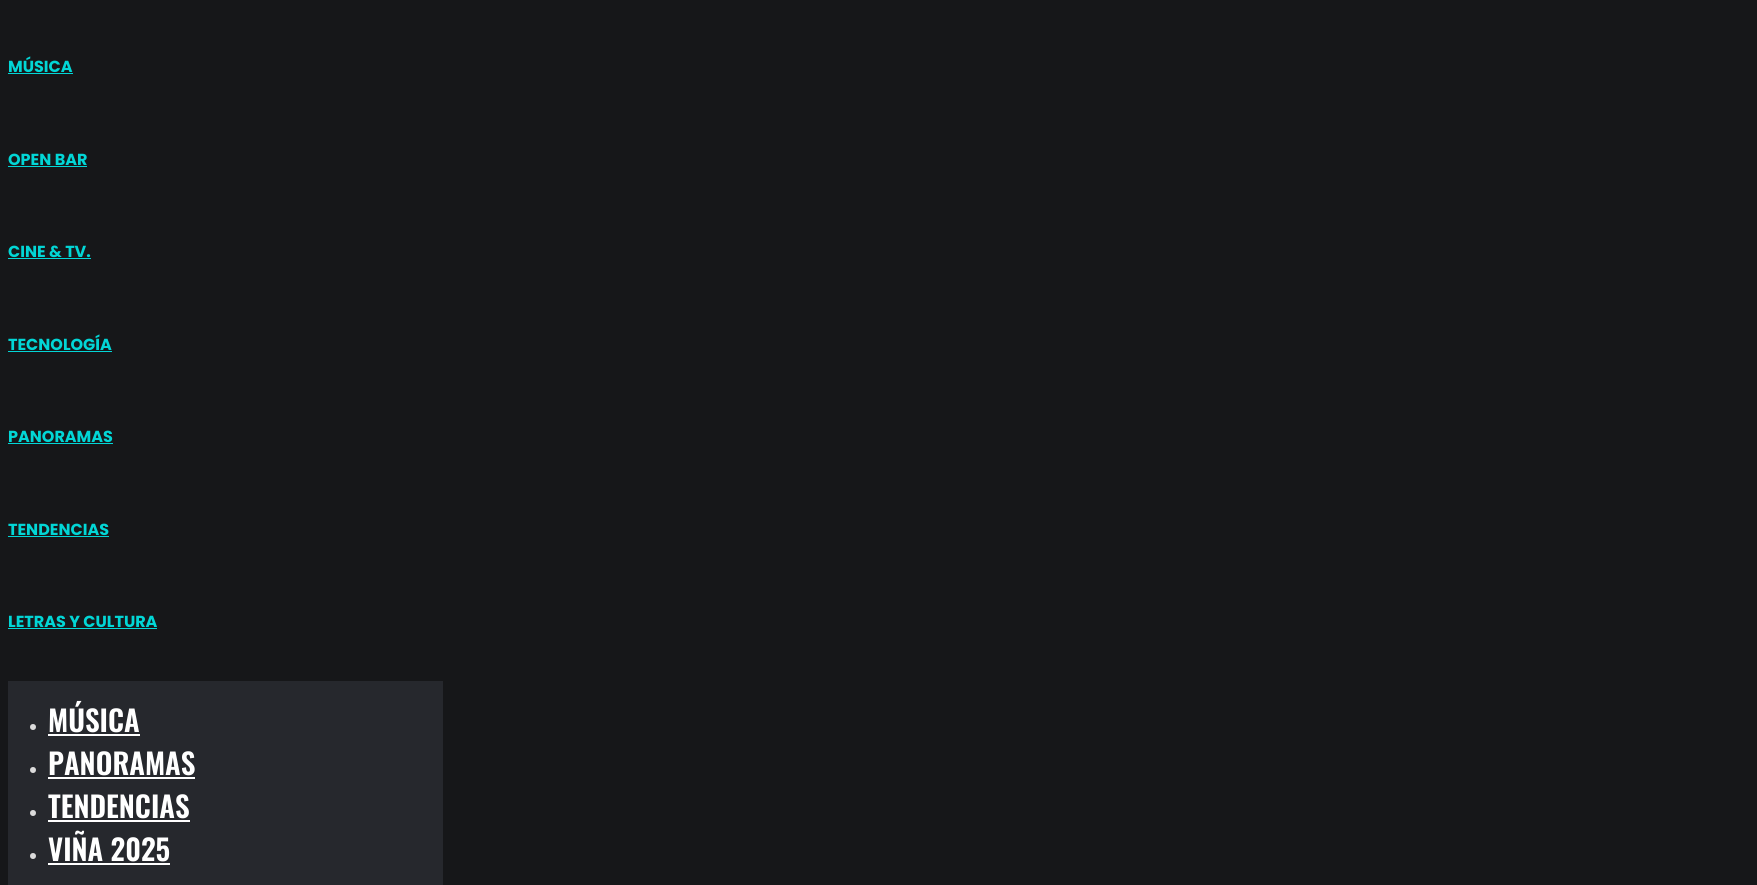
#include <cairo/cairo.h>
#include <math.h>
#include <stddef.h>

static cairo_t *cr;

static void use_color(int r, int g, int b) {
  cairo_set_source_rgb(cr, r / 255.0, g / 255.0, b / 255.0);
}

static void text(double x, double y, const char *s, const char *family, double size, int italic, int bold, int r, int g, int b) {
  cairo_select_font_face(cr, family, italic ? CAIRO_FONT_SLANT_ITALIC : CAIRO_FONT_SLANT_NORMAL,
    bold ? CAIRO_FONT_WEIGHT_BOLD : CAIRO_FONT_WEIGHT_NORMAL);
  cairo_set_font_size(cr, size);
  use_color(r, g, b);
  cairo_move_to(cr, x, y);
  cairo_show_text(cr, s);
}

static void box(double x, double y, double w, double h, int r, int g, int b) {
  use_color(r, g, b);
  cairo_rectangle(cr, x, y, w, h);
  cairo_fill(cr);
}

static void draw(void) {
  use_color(22, 23, 25);
  cairo_paint(cr);
  box(8, 73, 65, 1, 2, 214, 214);
  box(8, 166, 79, 1, 2, 214, 214);
  box(8, 258, 83, 1, 2, 214, 214);
  box(8, 351, 104, 1, 2, 214, 214);
  box(8, 443, 105, 1, 2, 214, 214);
  box(8, 536, 101, 1, 2, 214, 214);
  box(8, 628, 149, 1, 2, 214, 214);
  box(8, 681, 435, 204, 38, 40, 45);
  use_color(219, 219, 219);
  cairo_arc(cr, 33, 727, 3, 0, 2 * M_PI);
  cairo_fill(cr);
  box(48, 734, 92, 2, 255, 255, 255);
  use_color(219, 219, 219);
  cairo_arc(cr, 33, 770, 3, 0, 2 * M_PI);
  cairo_fill(cr);
  box(48, 777, 147, 2, 255, 255, 255);
  use_color(219, 219, 219);
  cairo_arc(cr, 33, 813, 3, 0, 2 * M_PI);
  cairo_fill(cr);
  box(48, 820, 142, 2, 255, 255, 255);
  use_color(219, 219, 219);
  cairo_arc(cr, 33, 856, 3, 0, 2 * M_PI);
  cairo_fill(cr);
  box(48, 863, 122, 2, 255, 255, 255);
  text(8, 72, "MÚSICA", "Poppins", 16, 0, 1, 2, 214, 214);
  text(8, 165, "OPEN BAR", "Poppins", 16, 0, 1, 2, 214, 214);
  text(8, 257, "CINE & TV.", "Poppins", 16, 0, 1, 2, 214, 214);
  text(8, 350, "TECNOLOGÍA", "Poppins", 16, 0, 1, 2, 214, 214);
  text(8, 442, "PANORAMAS", "Poppins", 16, 0, 1, 2, 214, 214);
  text(8, 535, "TENDENCIAS", "Poppins", 16, 0, 1, 2, 214, 214);
  text(8, 627, "LETRAS Y CULTURA", "Poppins", 16, 0, 1, 2, 214, 214);
  text(48, 732, "MÚSICA", "Oswald SemiBold", 29, 0, 0, 255, 255, 255);
  text(48, 775, "PANORAMAS", "Oswald SemiBold", 29, 0, 0, 255, 255, 255);
  text(48, 818, "TENDENCIAS", "Oswald SemiBold", 29, 0, 0, 255, 255, 255);
  text(48, 861, "VIÑA 2025", "Oswald SemiBold", 29, 0, 0, 255, 255, 255);
}

int main(void) {
  cairo_surface_t *surface = cairo_image_surface_create(CAIRO_FORMAT_RGB24, 1757, 885);
  cr = cairo_create(surface);
  cairo_font_options_t *options = cairo_font_options_create();
  cairo_font_options_set_hint_metrics(options, CAIRO_HINT_METRICS_OFF);
  cairo_font_options_set_hint_style(options, CAIRO_HINT_STYLE_NONE);
  cairo_set_font_options(cr, options);
  cairo_set_miter_limit(cr, 4);
  draw();
  cairo_surface_write_to_png(surface, "out.png");
  cairo_font_options_destroy(options);
  cairo_destroy(cr);
  cairo_surface_destroy(surface);
  return 0;
}
